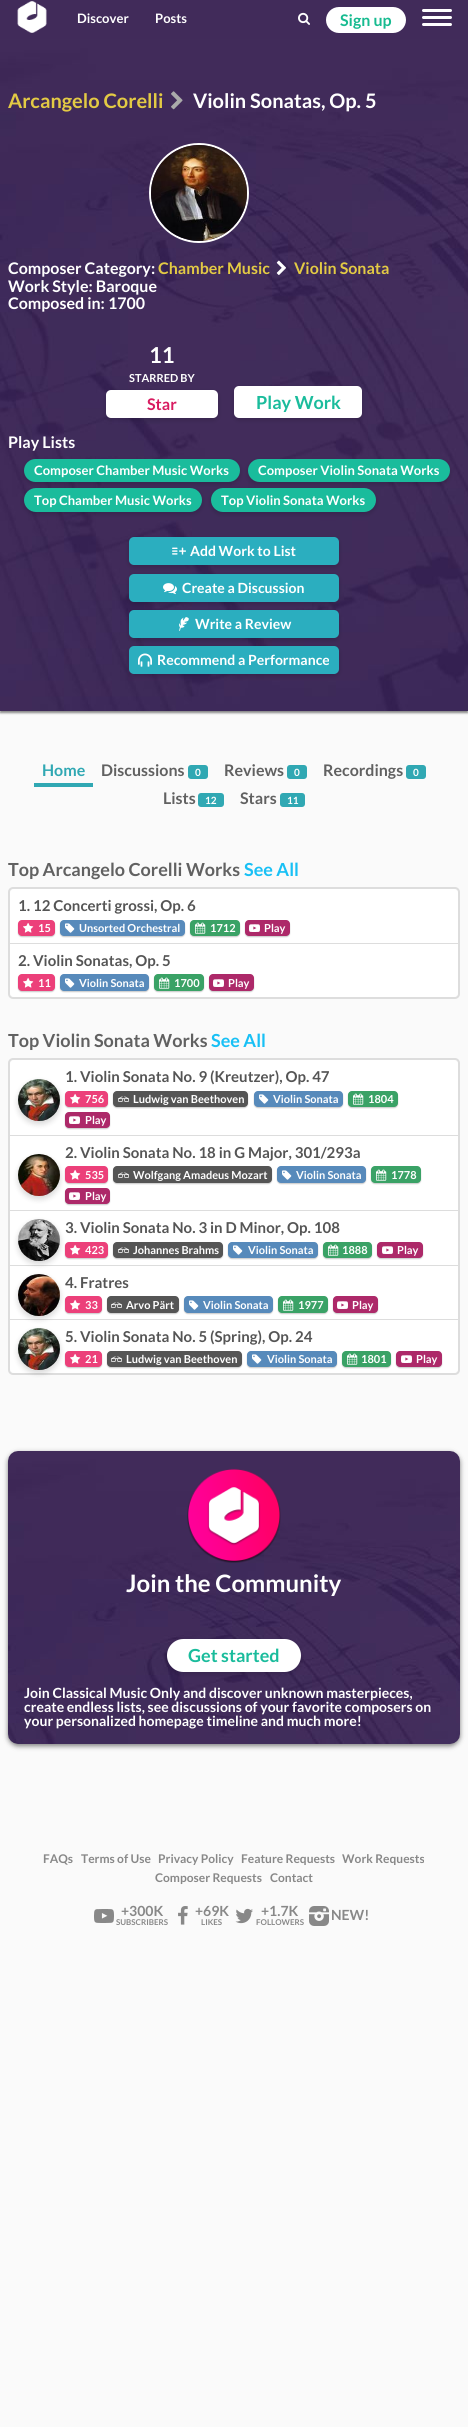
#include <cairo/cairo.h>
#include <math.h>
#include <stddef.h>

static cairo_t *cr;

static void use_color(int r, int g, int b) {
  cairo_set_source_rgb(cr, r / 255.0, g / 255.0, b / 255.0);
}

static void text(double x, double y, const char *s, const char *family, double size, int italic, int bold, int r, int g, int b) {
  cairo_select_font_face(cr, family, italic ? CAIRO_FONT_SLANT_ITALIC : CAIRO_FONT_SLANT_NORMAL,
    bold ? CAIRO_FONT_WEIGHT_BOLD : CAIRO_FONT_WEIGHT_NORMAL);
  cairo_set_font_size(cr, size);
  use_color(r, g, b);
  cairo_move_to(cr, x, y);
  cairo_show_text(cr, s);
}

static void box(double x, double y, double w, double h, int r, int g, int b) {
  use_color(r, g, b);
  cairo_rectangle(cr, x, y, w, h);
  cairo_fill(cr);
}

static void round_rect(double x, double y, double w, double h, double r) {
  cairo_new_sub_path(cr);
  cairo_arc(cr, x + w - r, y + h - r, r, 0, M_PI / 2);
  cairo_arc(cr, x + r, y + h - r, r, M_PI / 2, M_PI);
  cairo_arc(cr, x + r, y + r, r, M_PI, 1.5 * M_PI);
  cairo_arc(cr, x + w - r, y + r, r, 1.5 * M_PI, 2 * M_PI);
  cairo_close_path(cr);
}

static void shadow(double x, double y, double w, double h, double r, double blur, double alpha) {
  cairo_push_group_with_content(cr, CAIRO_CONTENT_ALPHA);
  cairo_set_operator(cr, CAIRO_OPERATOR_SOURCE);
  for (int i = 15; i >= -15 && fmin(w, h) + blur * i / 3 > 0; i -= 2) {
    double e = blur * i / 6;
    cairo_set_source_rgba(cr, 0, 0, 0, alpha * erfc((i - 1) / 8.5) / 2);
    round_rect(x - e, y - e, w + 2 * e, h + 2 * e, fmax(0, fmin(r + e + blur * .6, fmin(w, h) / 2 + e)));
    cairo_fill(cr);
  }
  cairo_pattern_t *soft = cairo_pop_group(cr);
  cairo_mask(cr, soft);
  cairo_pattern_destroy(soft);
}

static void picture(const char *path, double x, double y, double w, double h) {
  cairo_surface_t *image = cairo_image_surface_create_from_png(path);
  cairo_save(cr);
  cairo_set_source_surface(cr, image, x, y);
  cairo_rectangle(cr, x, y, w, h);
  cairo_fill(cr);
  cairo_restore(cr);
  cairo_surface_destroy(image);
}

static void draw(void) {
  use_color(250, 250, 250);
  cairo_paint(cr);
  box(0, 0, 468, 40, 65, 43, 90);
  picture("img_01.png", 17, 1, 30, 32);
  picture("img_02.png", 298, 12, 12, 13);
  use_color(255, 255, 255);
  round_rect(326, 7, 80, 26, 13);
  cairo_fill(cr);
  round_rect(422, 16, 30, 3, 1.5);
  cairo_fill(cr);
  round_rect(422, 9, 30, 3, 1.5);
  cairo_fill(cr);
  round_rect(422, 23, 30, 3, 1.5);
  cairo_fill(cr);
  use_color(136, 136, 136);
  shadow(0, 42, 468, 671, 0, 1, 1);
  picture("img_03.png", 0, 40, 468, 671);
  picture("img_04.png", 171, 91, 12, 19);
  cairo_arc(cr, 199, 193, 49, 0, 2 * M_PI);
  use_color(255, 255, 255);
  cairo_stroke(cr);
  picture("img_05.png", 151, 145, 96, 96);
  picture("img_06.png", 276, 260, 10, 15);
  use_color(0, 0, 0);
  shadow(106, 392, 112, 28, 5, 2.5, 0.16);
  use_color(255, 255, 255);
  round_rect(106, 390, 112, 28, 5);
  cairo_fill(cr);
  use_color(0, 0, 0);
  shadow(234, 388, 128, 32, 5, 2.5, 0.16);
  use_color(255, 255, 255);
  round_rect(234, 386, 128, 32, 5);
  cairo_fill(cr);
  use_color(0, 0, 0);
  shadow(24, 461, 216, 23, 11.5, 2.5, 0.16);
  use_color(26, 188, 156);
  round_rect(24, 459, 216, 23, 11.5);
  cairo_fill(cr);
  use_color(0, 0, 0);
  shadow(248, 461, 202, 23, 11.5, 2.5, 0.16);
  use_color(26, 188, 156);
  round_rect(248, 459, 202, 23, 11.5);
  cairo_fill(cr);
  use_color(0, 0, 0);
  shadow(24, 490, 178, 24, 12, 2.5, 0.16);
  use_color(26, 188, 156);
  round_rect(24, 488, 178, 24, 12);
  cairo_fill(cr);
  use_color(0, 0, 0);
  shadow(211, 490, 165, 24, 12, 2.5, 0.16);
  use_color(26, 188, 156);
  round_rect(211, 488, 165, 24, 12);
  cairo_fill(cr);
  use_color(0, 0, 0);
  shadow(129, 539, 210, 28, 5, 2.5, 0.16);
  use_color(43, 174, 191);
  round_rect(129, 537, 210, 28, 5);
  cairo_fill(cr);
  picture("img_07.png", 172, 547, 14, 8);
  use_color(0, 0, 0);
  shadow(129, 576, 210, 28, 5, 2.5, 0.16);
  use_color(43, 174, 191);
  round_rect(129, 574, 210, 28, 5);
  cairo_fill(cr);
  picture("img_08.png", 163, 583, 14, 12);
  use_color(0, 0, 0);
  shadow(129, 612, 210, 28, 5, 2.5, 0.16);
  use_color(43, 174, 191);
  round_rect(129, 610, 210, 28, 5);
  cairo_fill(cr);
  picture("img_09.png", 179, 617, 10, 14);
  use_color(0, 0, 0);
  shadow(129, 648, 210, 28, 5, 2.5, 0.16);
  use_color(43, 174, 191);
  round_rect(129, 646, 210, 28, 5);
  cairo_fill(cr);
  picture("img_10.png", 138, 653, 14, 14);
  box(34, 783, 59, 4, 48, 168, 179);
  round_rect(188, 765, 20, 14, 3);
  cairo_fill(cr);
  round_rect(287, 765, 20, 14, 3);
  cairo_fill(cr);
  round_rect(406, 765, 20, 14, 3);
  cairo_fill(cr);
  round_rect(198, 793, 26, 14, 3);
  cairo_fill(cr);
  round_rect(280, 793, 25, 14, 3);
  cairo_fill(cr);
  round_rect(9, 888, 450, 110, 4);
  use_color(221, 221, 221);
  cairo_stroke(cr);
  use_color(255, 255, 255);
  cairo_new_path(cr);
  cairo_move_to(cr, 15, 889);
  cairo_line_to(cr, 453, 889);
  cairo_curve_to(cr, 456, 889, 458, 891, 458, 894);
  cairo_line_to(cr, 458, 944);
  cairo_line_to(cr, 10, 944);
  cairo_line_to(cr, 10, 894);
  cairo_curve_to(cr, 10, 891, 12, 889, 15, 889);
  cairo_close_path(cr);
  cairo_fill(cr);
  box(10, 943, 448, 1, 221, 221, 221);
  use_color(204, 204, 204);
  shadow(18, 921, 37, 16, 4, 0.5, 1);
  use_color(236, 64, 122);
  round_rect(18, 920, 37, 16, 4);
  cairo_fill(cr);
  picture("img_11.png", 23, 922, 11, 11);
  use_color(204, 204, 204);
  shadow(60, 921, 125, 16, 4, 0.5, 1);
  use_color(87, 138, 187);
  round_rect(60, 920, 125, 16, 4);
  cairo_fill(cr);
  picture("img_12.png", 65, 923, 10, 10);
  use_color(204, 204, 204);
  shadow(190, 921, 50, 16, 4, 0.5, 1);
  use_color(58, 162, 102);
  round_rect(190, 920, 50, 16, 4);
  cairo_fill(cr);
  picture("img_13.png", 195, 922, 11, 12);
  use_color(204, 204, 204);
  shadow(245, 921, 45, 16, 4, 0.5, 1);
  use_color(173, 41, 105);
  round_rect(245, 920, 45, 16, 4);
  cairo_fill(cr);
  picture("img_14.png", 249, 924, 11, 8);
  use_color(255, 255, 255);
  cairo_new_path(cr);
  cairo_move_to(cr, 10, 944);
  cairo_line_to(cr, 458, 944);
  cairo_line_to(cr, 458, 992);
  cairo_curve_to(cr, 458, 995, 456, 997, 453, 997);
  cairo_line_to(cr, 15, 997);
  cairo_curve_to(cr, 12, 997, 10, 995, 10, 992);
  cairo_close_path(cr);
  cairo_fill(cr);
  use_color(204, 204, 204);
  shadow(18, 975, 37, 17, 4, 0.5, 1);
  use_color(236, 64, 122);
  round_rect(18, 974, 37, 17, 4);
  cairo_fill(cr);
  picture("img_11.png", 23, 977, 11, 11);
  use_color(204, 204, 204);
  shadow(60, 975, 89, 17, 4, 0.5, 1);
  use_color(87, 138, 187);
  round_rect(60, 974, 89, 17, 4);
  cairo_fill(cr);
  picture("img_12.png", 65, 978, 10, 10);
  use_color(204, 204, 204);
  shadow(154, 975, 50, 17, 4, 0.5, 1);
  use_color(58, 162, 102);
  round_rect(154, 974, 50, 17, 4);
  cairo_fill(cr);
  picture("img_13.png", 159, 977, 11, 12);
  use_color(204, 204, 204);
  shadow(209, 975, 45, 17, 4, 0.5, 1);
  use_color(173, 41, 105);
  round_rect(209, 974, 45, 17, 4);
  cairo_fill(cr);
  picture("img_14.png", 213, 979, 11, 8);
  round_rect(9, 1059, 450, 315, 4);
  use_color(221, 221, 221);
  cairo_stroke(cr);
  use_color(255, 255, 255);
  cairo_new_path(cr);
  cairo_move_to(cr, 15, 1060);
  cairo_line_to(cr, 453, 1060);
  cairo_curve_to(cr, 456, 1060, 458, 1062, 458, 1065);
  cairo_line_to(cr, 458, 1136);
  cairo_line_to(cr, 10, 1136);
  cairo_line_to(cr, 10, 1065);
  cairo_curve_to(cr, 10, 1062, 12, 1060, 15, 1060);
  cairo_close_path(cr);
  cairo_fill(cr);
  box(10, 1135, 448, 1, 221, 221, 221);
  use_color(0, 0, 0);
  shadow(18, 1082, 42, 42, 21, 3, 0.16);
  picture("img_15.png", 18, 1079, 42, 42);
  use_color(204, 204, 204);
  shadow(65, 1092, 43, 16, 4, 0.5, 1);
  use_color(236, 64, 122);
  round_rect(65, 1091, 43, 16, 4);
  cairo_fill(cr);
  picture("img_11.png", 70, 1093, 11, 11);
  use_color(204, 204, 204);
  shadow(113, 1092, 135, 16, 4, 0.5, 1);
  use_color(85, 85, 85);
  round_rect(113, 1091, 135, 16, 4);
  cairo_fill(cr);
  picture("img_16.png", 118, 1096, 11, 6);
  use_color(204, 204, 204);
  shadow(254, 1092, 89, 16, 4, 0.5, 1);
  use_color(87, 138, 187);
  round_rect(254, 1091, 89, 16, 4);
  cairo_fill(cr);
  picture("img_12.png", 259, 1094, 10, 10);
  use_color(204, 204, 204);
  shadow(348, 1092, 50, 16, 4, 0.5, 1);
  use_color(58, 162, 102);
  round_rect(348, 1091, 50, 16, 4);
  cairo_fill(cr);
  picture("img_13.png", 353, 1093, 11, 12);
  use_color(204, 204, 204);
  shadow(65, 1113, 45, 16, 4, 0.5, 1);
  use_color(173, 41, 105);
  round_rect(65, 1112, 45, 16, 4);
  cairo_fill(cr);
  picture("img_14.png", 69, 1116, 11, 8);
  box(10, 1136, 448, 74, 255, 255, 255);
  box(10, 1210, 448, 1, 221, 221, 221);
  use_color(0, 0, 0);
  shadow(18, 1157, 42, 42, 21, 3, 0.16);
  picture("img_17.png", 18, 1154, 42, 42);
  use_color(204, 204, 204);
  shadow(65, 1167, 43, 17, 4, 0.5, 1);
  use_color(236, 64, 122);
  round_rect(65, 1166, 43, 17, 4);
  cairo_fill(cr);
  picture("img_11.png", 70, 1169, 11, 11);
  use_color(204, 204, 204);
  shadow(113, 1167, 159, 17, 4, 0.5, 1);
  use_color(85, 85, 85);
  round_rect(113, 1166, 159, 17, 4);
  cairo_fill(cr);
  picture("img_16.png", 118, 1172, 11, 6);
  use_color(204, 204, 204);
  shadow(277, 1167, 89, 17, 4, 0.5, 1);
  use_color(87, 138, 187);
  round_rect(277, 1166, 89, 17, 4);
  cairo_fill(cr);
  picture("img_12.png", 282, 1170, 10, 10);
  use_color(204, 204, 204);
  shadow(371, 1167, 50, 17, 4, 0.5, 1);
  use_color(58, 162, 102);
  round_rect(371, 1166, 50, 17, 4);
  cairo_fill(cr);
  picture("img_13.png", 376, 1169, 11, 12);
  use_color(204, 204, 204);
  shadow(65, 1189, 45, 16, 4, 0.5, 1);
  use_color(173, 41, 105);
  round_rect(65, 1188, 45, 16, 4);
  cairo_fill(cr);
  picture("img_14.png", 69, 1192, 11, 8);
  box(10, 1211, 448, 54, 255, 255, 255);
  box(10, 1265, 448, 1, 221, 221, 221);
  box(10, 1266, 448, 53, 255, 255, 255);
  use_color(0, 0, 0);
  shadow(18, 1222, 42, 42, 21, 3, 0.16);
  picture("img_18.png", 18, 1219, 42, 42);
  use_color(204, 204, 204);
  shadow(65, 1243, 43, 16, 4, 0.5, 1);
  use_color(236, 64, 122);
  round_rect(65, 1242, 43, 16, 4);
  cairo_fill(cr);
  picture("img_11.png", 70, 1244, 11, 11);
  use_color(204, 204, 204);
  shadow(113, 1243, 110, 16, 4, 0.5, 1);
  use_color(85, 85, 85);
  round_rect(113, 1242, 110, 16, 4);
  cairo_fill(cr);
  picture("img_16.png", 118, 1247, 11, 6);
  use_color(204, 204, 204);
  shadow(228, 1243, 90, 16, 4, 0.5, 1);
  use_color(87, 138, 187);
  round_rect(228, 1242, 90, 16, 4);
  cairo_fill(cr);
  picture("img_12.png", 233, 1245, 10, 10);
  use_color(204, 204, 204);
  shadow(323, 1243, 49, 16, 4, 0.5, 1);
  use_color(58, 162, 102);
  round_rect(323, 1242, 49, 16, 4);
  cairo_fill(cr);
  picture("img_13.png", 328, 1244, 11, 12);
  use_color(204, 204, 204);
  shadow(377, 1243, 46, 16, 4, 0.5, 1);
  use_color(173, 41, 105);
  round_rect(377, 1242, 46, 16, 4);
  cairo_fill(cr);
  picture("img_14.png", 382, 1246, 11, 8);
  box(10, 1319, 448, 1, 221, 221, 221);
  use_color(255, 255, 255);
  cairo_new_path(cr);
  cairo_move_to(cr, 10, 1320);
  cairo_line_to(cr, 458, 1320);
  cairo_line_to(cr, 458, 1368);
  cairo_curve_to(cr, 458, 1371, 456, 1373, 453, 1373);
  cairo_line_to(cr, 15, 1373);
  cairo_curve_to(cr, 12, 1373, 10, 1371, 10, 1368);
  cairo_close_path(cr);
  cairo_fill(cr);
  use_color(0, 0, 0);
  shadow(18, 1277, 42, 42, 21, 3, 0.16);
  picture("img_19.png", 18, 1274, 42, 42);
  use_color(204, 204, 204);
  shadow(65, 1297, 37, 17, 4, 0.5, 1);
  use_color(236, 64, 122);
  round_rect(65, 1296, 37, 17, 4);
  cairo_fill(cr);
  picture("img_11.png", 70, 1299, 11, 11);
  use_color(204, 204, 204);
  shadow(107, 1297, 72, 17, 4, 0.5, 1);
  use_color(85, 85, 85);
  round_rect(107, 1296, 72, 17, 4);
  cairo_fill(cr);
  picture("img_16.png", 111, 1302, 11, 6);
  use_color(204, 204, 204);
  shadow(184, 1297, 89, 17, 4, 0.5, 1);
  use_color(87, 138, 187);
  round_rect(184, 1296, 89, 17, 4);
  cairo_fill(cr);
  picture("img_12.png", 189, 1300, 10, 10);
  use_color(204, 204, 204);
  shadow(278, 1297, 50, 17, 4, 0.5, 1);
  use_color(58, 162, 102);
  round_rect(278, 1296, 50, 17, 4);
  cairo_fill(cr);
  picture("img_13.png", 283, 1299, 11, 12);
  use_color(204, 204, 204);
  shadow(333, 1297, 45, 17, 4, 0.5, 1);
  use_color(173, 41, 105);
  round_rect(333, 1296, 45, 17, 4);
  cairo_fill(cr);
  picture("img_14.png", 337, 1301, 11, 8);
  use_color(0, 0, 0);
  shadow(18, 1331, 42, 42, 21, 3, 0.16);
  picture("img_15.png", 18, 1328, 42, 42);
  use_color(204, 204, 204);
  shadow(65, 1352, 37, 16, 4, 0.5, 1);
  use_color(236, 64, 122);
  round_rect(65, 1351, 37, 16, 4);
  cairo_fill(cr);
  picture("img_11.png", 70, 1353, 11, 11);
  use_color(204, 204, 204);
  shadow(107, 1352, 135, 16, 4, 0.5, 1);
  use_color(85, 85, 85);
  round_rect(107, 1351, 135, 16, 4);
  cairo_fill(cr);
  picture("img_16.png", 111, 1356, 11, 6);
  use_color(204, 204, 204);
  shadow(247, 1352, 90, 16, 4, 0.5, 1);
  use_color(87, 138, 187);
  round_rect(247, 1351, 90, 16, 4);
  cairo_fill(cr);
  picture("img_12.png", 252, 1354, 10, 10);
  use_color(204, 204, 204);
  shadow(342, 1352, 49, 16, 4, 0.5, 1);
  use_color(58, 162, 102);
  round_rect(342, 1351, 49, 16, 4);
  cairo_fill(cr);
  picture("img_13.png", 347, 1353, 11, 12);
  use_color(204, 204, 204);
  shadow(396, 1352, 46, 16, 4, 0.5, 1);
  use_color(173, 41, 105);
  round_rect(396, 1351, 46, 16, 4);
  cairo_fill(cr);
  picture("img_14.png", 401, 1355, 11, 8);
  use_color(0, 0, 0);
  shadow(8, 1453, 452, 293, 10, 2.5, 0.5);
  picture("img_20.png", 8, 1451, 452, 293);
  picture("img_21.png", 187, 1468, 94, 95);
  shadow(167, 1641, 134, 33, 16.5, 2.5, 0.16);
  use_color(255, 255, 255);
  round_rect(167, 1639, 134, 33, 16.5);
  cairo_fill(cr);
  picture("img_22.png", 94, 1909, 20, 14);
  picture("img_23.png", 178, 1906, 10, 19);
  picture("img_24.png", 235, 1908, 18, 16);
  picture("img_25.png", 309, 1906, 20, 20);
  text(77, 23, "Discover", "Lato", 13, 0, 1, 255, 255, 255);
  text(155, 23, "Posts", "Lato", 13, 0, 1, 255, 255, 255);
  text(340, 26, "Sign up", "Lato", 16, 0, 1, 23, 187, 144);
  text(8, 108, "Arcangelo Corelli", "Lato", 20, 0, 1, 227, 202, 68);
  text(193, 108, "Violin Sonatas, Op. 5", "Lato", 20, 0, 1, 255, 255, 255);
  text(8, 274, "Composer Category:", "Lato", 16, 0, 1, 255, 255, 255);
  text(158, 274, "Chamber Music", "Lato", 16, 0, 1, 227, 202, 68);
  text(294, 274, "Violin Sonata", "Lato", 16, 0, 1, 227, 202, 68);
  text(8, 292, "Work Style: Baroque", "Lato", 16, 0, 1, 255, 255, 255);
  text(8, 309, "Composed in: 1700", "Lato", 16, 0, 1, 255, 255, 255);
  text(149, 363, "11", "Lato", 22, 0, 1, 255, 255, 255);
  text(129, 382, "STARRED BY", "Lato", 11, 0, 1, 255, 255, 255);
  text(147, 410, "Star", "Lato", 16, 0, 1, 216, 27, 96);
  text(256, 409, "Play Work", "Lato", 18, 0, 1, 26, 188, 156);
  text(8, 448, "Play Lists", "Lato", 16, 0, 1, 255, 255, 255);
  text(34, 475, "Composer Chamber Music Works", "Lato", 13, 0, 1, 255, 255, 255);
  text(258, 475, "Composer Violin Sonata Works", "Lato", 13, 0, 1, 255, 255, 255);
  text(34, 505, "Top Chamber Music Works", "Lato", 13, 0, 1, 255, 255, 255);
  text(221, 505, "Top Violin Sonata Works", "Lato", 13, 0, 1, 255, 255, 255);
  text(190, 556, "Add Work to List", "Lato", 14, 0, 1, 255, 255, 255);
  text(182, 593, "Create a Discussion", "Lato", 14, 0, 1, 255, 255, 255);
  text(195, 629, "Write a Review", "Lato", 14, 0, 1, 255, 255, 255);
  text(157, 665, "Recommend a Performance", "Lato", 14, 0, 1, 255, 255, 255);
  text(42, 776, "Home", "Lato", 16, 0, 1, 48, 168, 179);
  text(101, 776, "Discussions", "Lato", 16, 0, 1, 97, 97, 97);
  text(195, 776, "0", "Lato", 10, 0, 1, 255, 255, 255);
  text(224, 776, "Reviews", "Lato", 16, 0, 1, 97, 97, 97);
  text(294, 776, "0", "Lato", 10, 0, 1, 255, 255, 255);
  text(323, 776, "Recordings", "Lato", 16, 0, 1, 97, 97, 97);
  text(413, 776, "0", "Lato", 10, 0, 1, 255, 255, 255);
  text(163, 804, "Lists", "Lato", 16, 0, 1, 97, 97, 97);
  text(205, 804, "12", "Lato", 10, 0, 1, 255, 255, 255);
  text(240, 804, "Stars", "Lato", 16, 0, 1, 97, 97, 97);
  text(287, 804, "11", "Lato", 10, 0, 1, 255, 255, 255);
  text(8, 876, "Top Arcangelo Corelli Works", "Lato", 18, 0, 1, 97, 97, 97);
  text(244, 876, "See All", "Lato", 18, 0, 1, 24, 192, 245);
  text(18, 911, "1. 12 Concerti grossi, Op. 6", "Lato", 15, 0, 1, 85, 85, 85);
  text(38, 932, "15", "Lato", 11, 0, 1, 255, 255, 255);
  text(79, 932, "Unsorted Orchestral", "Lato", 11, 0, 1, 255, 255, 255);
  text(210, 932, "1712", "Lato", 11, 0, 1, 255, 255, 255);
  text(264, 932, "Play", "Lato", 11, 0, 1, 255, 255, 255);
  text(18, 966, "2. Violin Sonatas, Op. 5", "Lato", 15, 0, 1, 85, 85, 85);
  text(38, 987, "11", "Lato", 11, 0, 1, 255, 255, 255);
  text(79, 987, "Violin Sonata", "Lato", 11, 0, 1, 255, 255, 255);
  text(174, 987, "1700", "Lato", 11, 0, 1, 255, 255, 255);
  text(228, 987, "Play", "Lato", 11, 0, 1, 255, 255, 255);
  text(8, 1047, "Top Violin Sonata Works", "Lato", 18, 0, 1, 97, 97, 97);
  text(211, 1047, "See All", "Lato", 18, 0, 1, 24, 192, 245);
  text(65, 1082, "1. Violin Sonata No. 9 (Kreutzer), Op. 47", "Lato", 15, 0, 1, 85, 85, 85);
  text(85, 1103, "756", "Lato", 11, 0, 1, 255, 255, 255);
  text(133, 1103, "Ludwig van Beethoven", "Lato", 11, 0, 1, 255, 255, 255);
  text(273, 1103, "Violin Sonata", "Lato", 11, 0, 1, 255, 255, 255);
  text(368, 1103, "1804", "Lato", 11, 0, 1, 255, 255, 255);
  text(85, 1124, "Play", "Lato", 11, 0, 1, 255, 255, 255);
  text(65, 1158, "2. Violin Sonata No. 18 in G Major, 301/293a", "Lato", 15, 0, 1, 85, 85, 85);
  text(85, 1179, "535", "Lato", 11, 0, 1, 255, 255, 255);
  text(133, 1179, "Wolfgang Amadeus Mozart", "Lato", 11, 0, 1, 255, 255, 255);
  text(296, 1179, "Violin Sonata", "Lato", 11, 0, 1, 255, 255, 255);
  text(391, 1179, "1778", "Lato", 11, 0, 1, 255, 255, 255);
  text(85, 1200, "Play", "Lato", 11, 0, 1, 255, 255, 255);
  text(65, 1233, "3. Violin Sonata No. 3 in D Minor, Op. 108", "Lato", 15, 0, 1, 85, 85, 85);
  text(85, 1254, "423", "Lato", 11, 0, 1, 255, 255, 255);
  text(133, 1254, "Johannes Brahms", "Lato", 11, 0, 1, 255, 255, 255);
  text(248, 1254, "Violin Sonata", "Lato", 11, 0, 1, 255, 255, 255);
  text(342, 1254, "1888", "Lato", 11, 0, 1, 255, 255, 255);
  text(397, 1254, "Play", "Lato", 11, 0, 1, 255, 255, 255);
  text(65, 1288, "4. Fratres", "Lato", 15, 0, 1, 85, 85, 85);
  text(85, 1309, "33", "Lato", 11, 0, 1, 255, 255, 255);
  text(126, 1309, "Arvo Pärt", "Lato", 11, 0, 1, 255, 255, 255);
  text(203, 1309, "Violin Sonata", "Lato", 11, 0, 1, 255, 255, 255);
  text(298, 1309, "1977", "Lato", 11, 0, 1, 255, 255, 255);
  text(352, 1309, "Play", "Lato", 11, 0, 1, 255, 255, 255);
  text(65, 1342, "5. Violin Sonata No. 5 (Spring), Op. 24", "Lato", 15, 0, 1, 85, 85, 85);
  text(85, 1363, "21", "Lato", 11, 0, 1, 255, 255, 255);
  text(126, 1363, "Ludwig van Beethoven", "Lato", 11, 0, 1, 255, 255, 255);
  text(267, 1363, "Violin Sonata", "Lato", 11, 0, 1, 255, 255, 255);
  text(361, 1363, "1801", "Lato", 11, 0, 1, 255, 255, 255);
  text(416, 1363, "Play", "Lato", 11, 0, 1, 255, 255, 255);
  text(126, 1592, "Join the Community", "Lato", 24, 0, 1, 255, 255, 255);
  text(188, 1662, "Get started", "Lato", 18, 0, 1, 26, 188, 156);
  text(24, 1698, "Join Classical Music Only and discover unknown masterpieces,", "Lato", 14, 0, 1, 255, 255, 255);
  text(24, 1712, "create endless lists, see discussions of your favorite composers on", "Lato", 14, 0, 1, 255, 255, 255);
  text(24, 1726, "your personalized homepage timeline and much more!", "Lato", 14, 0, 1, 255, 255, 255);
  text(43, 1863, "FAQs", "Lato", 12, 0, 1, 136, 136, 136);
  text(81, 1863, "Terms of Use", "Lato", 12, 0, 1, 136, 136, 136);
  text(158, 1863, "Privacy Policy", "Lato", 12, 0, 1, 136, 136, 136);
  text(241, 1863, "Feature Requests", "Lato", 12, 0, 1, 136, 136, 136);
  text(342, 1863, "Work Requests", "Lato", 12, 0, 1, 136, 136, 136);
  text(155, 1882, "Composer Requests", "Lato", 12, 0, 1, 136, 136, 136);
  text(270, 1882, "Contact", "Lato", 12, 0, 1, 136, 136, 136);
  text(121, 1916, "+300K", "Lato", 14, 0, 1, 136, 136, 136);
  text(116, 1925, "SUBSCRIBERS", "Lato", 8, 0, 1, 136, 136, 136);
  text(195, 1916, "+69K", "Lato", 14, 0, 1, 136, 136, 136);
  text(201, 1925, "LIKES", "Lato", 8, 0, 1, 136, 136, 136);
  text(261, 1916, "+1.7K", "Lato", 14, 0, 1, 136, 136, 136);
  text(256, 1925, "FOLLOWERS", "Lato", 8, 0, 1, 136, 136, 136);
  text(331, 1920, "NEW!", "Lato", 14, 0, 1, 136, 136, 136);
}

int main(void) {
  cairo_surface_t *surface = cairo_image_surface_create(CAIRO_FORMAT_RGB24, 468, 2427);
  cr = cairo_create(surface);
  cairo_font_options_t *options = cairo_font_options_create();
  cairo_font_options_set_hint_metrics(options, CAIRO_HINT_METRICS_OFF);
  cairo_font_options_set_hint_style(options, CAIRO_HINT_STYLE_NONE);
  cairo_set_font_options(cr, options);
  cairo_set_miter_limit(cr, 4);
  draw();
  cairo_surface_write_to_png(surface, "out.png");
  cairo_font_options_destroy(options);
  cairo_destroy(cr);
  cairo_surface_destroy(surface);
  return 0;
}
